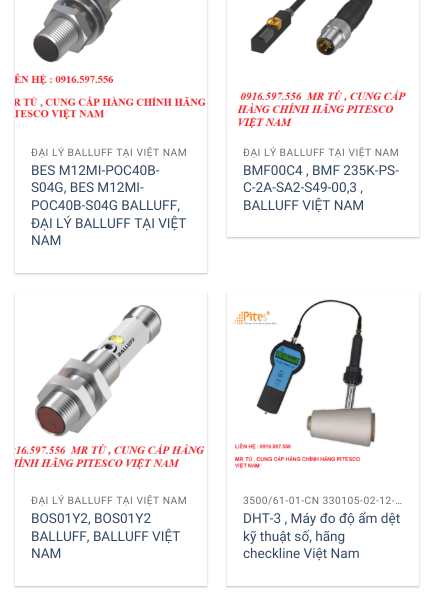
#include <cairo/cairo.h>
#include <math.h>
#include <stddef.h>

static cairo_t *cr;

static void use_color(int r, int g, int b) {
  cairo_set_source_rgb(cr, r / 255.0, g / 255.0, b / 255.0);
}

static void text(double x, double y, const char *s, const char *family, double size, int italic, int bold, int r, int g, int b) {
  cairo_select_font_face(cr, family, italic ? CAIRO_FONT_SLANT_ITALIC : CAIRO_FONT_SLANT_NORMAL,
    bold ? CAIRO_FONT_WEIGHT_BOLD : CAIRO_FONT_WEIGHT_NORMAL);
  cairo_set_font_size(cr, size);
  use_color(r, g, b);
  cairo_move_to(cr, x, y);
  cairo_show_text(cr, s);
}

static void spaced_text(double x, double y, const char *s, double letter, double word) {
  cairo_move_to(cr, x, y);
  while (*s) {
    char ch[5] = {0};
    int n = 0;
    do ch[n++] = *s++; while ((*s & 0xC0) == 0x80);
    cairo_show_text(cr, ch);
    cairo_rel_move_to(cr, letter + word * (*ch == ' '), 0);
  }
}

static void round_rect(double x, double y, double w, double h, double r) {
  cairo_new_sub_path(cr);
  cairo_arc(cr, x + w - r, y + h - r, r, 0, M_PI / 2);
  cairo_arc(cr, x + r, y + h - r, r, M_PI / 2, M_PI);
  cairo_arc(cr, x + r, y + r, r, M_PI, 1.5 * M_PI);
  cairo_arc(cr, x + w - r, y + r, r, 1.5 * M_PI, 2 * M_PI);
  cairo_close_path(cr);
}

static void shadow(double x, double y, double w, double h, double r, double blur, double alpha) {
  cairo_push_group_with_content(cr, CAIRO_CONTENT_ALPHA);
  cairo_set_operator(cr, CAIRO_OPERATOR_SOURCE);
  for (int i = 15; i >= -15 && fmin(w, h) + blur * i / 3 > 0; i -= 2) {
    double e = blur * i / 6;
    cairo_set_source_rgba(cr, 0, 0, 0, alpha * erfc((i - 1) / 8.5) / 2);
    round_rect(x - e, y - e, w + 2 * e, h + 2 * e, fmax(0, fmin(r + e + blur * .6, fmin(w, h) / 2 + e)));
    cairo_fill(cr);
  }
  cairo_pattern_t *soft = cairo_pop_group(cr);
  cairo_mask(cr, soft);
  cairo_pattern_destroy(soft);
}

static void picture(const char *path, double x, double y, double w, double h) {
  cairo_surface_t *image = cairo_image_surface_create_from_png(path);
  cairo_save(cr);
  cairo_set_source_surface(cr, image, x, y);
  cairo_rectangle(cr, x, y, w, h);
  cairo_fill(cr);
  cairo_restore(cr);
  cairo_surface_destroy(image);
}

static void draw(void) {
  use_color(255, 255, 255);
  cairo_paint(cr);
  cairo_save(cr);
  cairo_set_fill_rule(cr, CAIRO_FILL_RULE_EVEN_ODD);
  cairo_new_path(cr);
  cairo_move_to(cr, 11, 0);
  cairo_line_to(cr, 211, 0);
  cairo_line_to(cr, 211, 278);
  cairo_line_to(cr, 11, 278);
  cairo_close_path(cr);
  cairo_move_to(cr, 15, -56);
  cairo_line_to(cr, 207, -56);
  cairo_line_to(cr, 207, 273);
  cairo_line_to(cr, 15, 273);
  cairo_close_path(cr);
  cairo_clip(cr);
  use_color(0, 0, 0);
  shadow(15, -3, 192, 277, 0, 1, 0.24);
  cairo_restore(cr);
  picture("img_01.png", 15, 0, 191, 120);
  cairo_save(cr);
  cairo_set_fill_rule(cr, CAIRO_FILL_RULE_EVEN_ODD);
  cairo_new_path(cr);
  cairo_move_to(cr, 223, 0);
  cairo_line_to(cr, 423, 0);
  cairo_line_to(cr, 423, 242);
  cairo_line_to(cr, 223, 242);
  cairo_close_path(cr);
  cairo_move_to(cr, 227, -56);
  cairo_line_to(cr, 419, -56);
  cairo_line_to(cr, 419, 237);
  cairo_line_to(cr, 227, 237);
  cairo_close_path(cr);
  cairo_clip(cr);
  use_color(0, 0, 0);
  shadow(227, -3, 192, 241, 0, 1, 0.24);
  cairo_restore(cr);
  picture("img_02.png", 237, 0, 169, 129);
  cairo_save(cr);
  cairo_set_fill_rule(cr, CAIRO_FILL_RULE_EVEN_ODD);
  cairo_new_path(cr);
  cairo_move_to(cr, 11, 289);
  cairo_line_to(cr, 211, 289);
  cairo_line_to(cr, 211, 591);
  cairo_line_to(cr, 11, 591);
  cairo_close_path(cr);
  cairo_move_to(cr, 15, 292);
  cairo_line_to(cr, 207, 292);
  cairo_line_to(cr, 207, 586);
  cairo_line_to(cr, 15, 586);
  cairo_close_path(cr);
  cairo_clip(cr);
  use_color(0, 0, 0);
  shadow(15, 293, 192, 294, 0, 1, 0.24);
  cairo_restore(cr);
  picture("img_03.png", 15, 305, 190, 164);
  cairo_save(cr);
  cairo_set_fill_rule(cr, CAIRO_FILL_RULE_EVEN_ODD);
  cairo_new_path(cr);
  cairo_move_to(cr, 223, 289);
  cairo_line_to(cr, 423, 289);
  cairo_line_to(cr, 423, 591);
  cairo_line_to(cr, 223, 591);
  cairo_close_path(cr);
  cairo_move_to(cr, 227, 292);
  cairo_line_to(cr, 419, 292);
  cairo_line_to(cr, 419, 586);
  cairo_line_to(cr, 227, 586);
  cairo_close_path(cr);
  cairo_clip(cr);
  use_color(0, 0, 0);
  shadow(227, 293, 192, 294, 0, 1, 0.24);
  cairo_restore(cr);
  picture("img_04.png", 232, 299, 144, 170);
  cairo_save(cr);
  cairo_rectangle(cr, 31, 147, 160, 12);
  cairo_clip(cr);
  cairo_select_font_face(cr, "Roboto", CAIRO_FONT_SLANT_NORMAL, CAIRO_FONT_WEIGHT_NORMAL);
  cairo_set_font_size(cr, 10.25);
  use_color(110, 110, 110);
  spaced_text(31, 156, "ĐẠI LÝ BALLUFF TẠI VIỆT NAM", 0.5, 0);
  cairo_restore(cr);
  text(31, 175, "BES M12MI-POC40B-", "Roboto", 13.6, 0, 0, 51, 72, 98);
  text(31, 192, "S04G, BES M12MI-", "Roboto", 13.6, 0, 0, 51, 72, 98);
  text(31, 210, "POC40B-S04G BALLUFF,", "Roboto", 13.6, 0, 0, 51, 72, 98);
  text(31, 228, "ĐẠI LÝ BALLUFF TẠI VIỆT", "Roboto", 13.6, 0, 0, 51, 72, 98);
  text(31, 245, "NAM", "Roboto", 13.6, 0, 0, 51, 72, 98);
  cairo_save(cr);
  cairo_rectangle(cr, 243, 147, 160, 12);
  cairo_clip(cr);
  cairo_set_font_size(cr, 10.25);
  use_color(110, 110, 110);
  spaced_text(243, 156, "ĐẠI LÝ BALLUFF TẠI VIỆT NAM", 0.5, 0);
  cairo_restore(cr);
  text(243, 175, "BMF00C4 , BMF 235K-PS-", "Roboto", 13.6, 0, 0, 51, 72, 98);
  text(243, 192, "C-2A-SA2-S49-00,3 ,", "Roboto", 13.6, 0, 0, 51, 72, 98);
  text(243, 210, "BALLUFF VIỆT NAM", "Roboto", 13.6, 0, 0, 51, 72, 98);
  cairo_save(cr);
  cairo_rectangle(cr, 31, 495, 160, 12);
  cairo_clip(cr);
  cairo_set_font_size(cr, 10.25);
  use_color(110, 110, 110);
  spaced_text(31, 504, "ĐẠI LÝ BALLUFF TẠI VIỆT NAM", 0.5, 0);
  cairo_restore(cr);
  text(31, 523, "BOS01Y2, BOS01Y2", "Roboto", 13.6, 0, 0, 51, 72, 98);
  text(31, 541, "BALLUFF, BALLUFF VIỆT", "Roboto", 13.6, 0, 0, 51, 72, 98);
  text(31, 558, "NAM", "Roboto", 13.6, 0, 0, 51, 72, 98);
  cairo_set_font_size(cr, 10.25);
  use_color(110, 110, 110);
  spaced_text(243, 504, "3500/61-01-CN 330105-02-12-…", 0.5, 0);
  text(243, 523, "DHT-3 , Máy đo độ ẩm dệt", "Roboto", 13.6, 0, 0, 51, 72, 98);
  text(243, 541, "kỹ thuật số, hãng", "Roboto", 13.6, 0, 0, 51, 72, 98);
  text(243, 558, "checkline Việt Nam", "Roboto", 13.6, 0, 0, 51, 72, 98);
}

int main(void) {
  cairo_surface_t *surface = cairo_image_surface_create(CAIRO_FORMAT_RGB24, 434, 605);
  cr = cairo_create(surface);
  cairo_font_options_t *options = cairo_font_options_create();
  cairo_font_options_set_hint_metrics(options, CAIRO_HINT_METRICS_OFF);
  cairo_font_options_set_hint_style(options, CAIRO_HINT_STYLE_NONE);
  cairo_set_font_options(cr, options);
  cairo_set_miter_limit(cr, 4);
  draw();
  cairo_surface_write_to_png(surface, "out.png");
  cairo_font_options_destroy(options);
  cairo_destroy(cr);
  cairo_surface_destroy(surface);
  return 0;
}
